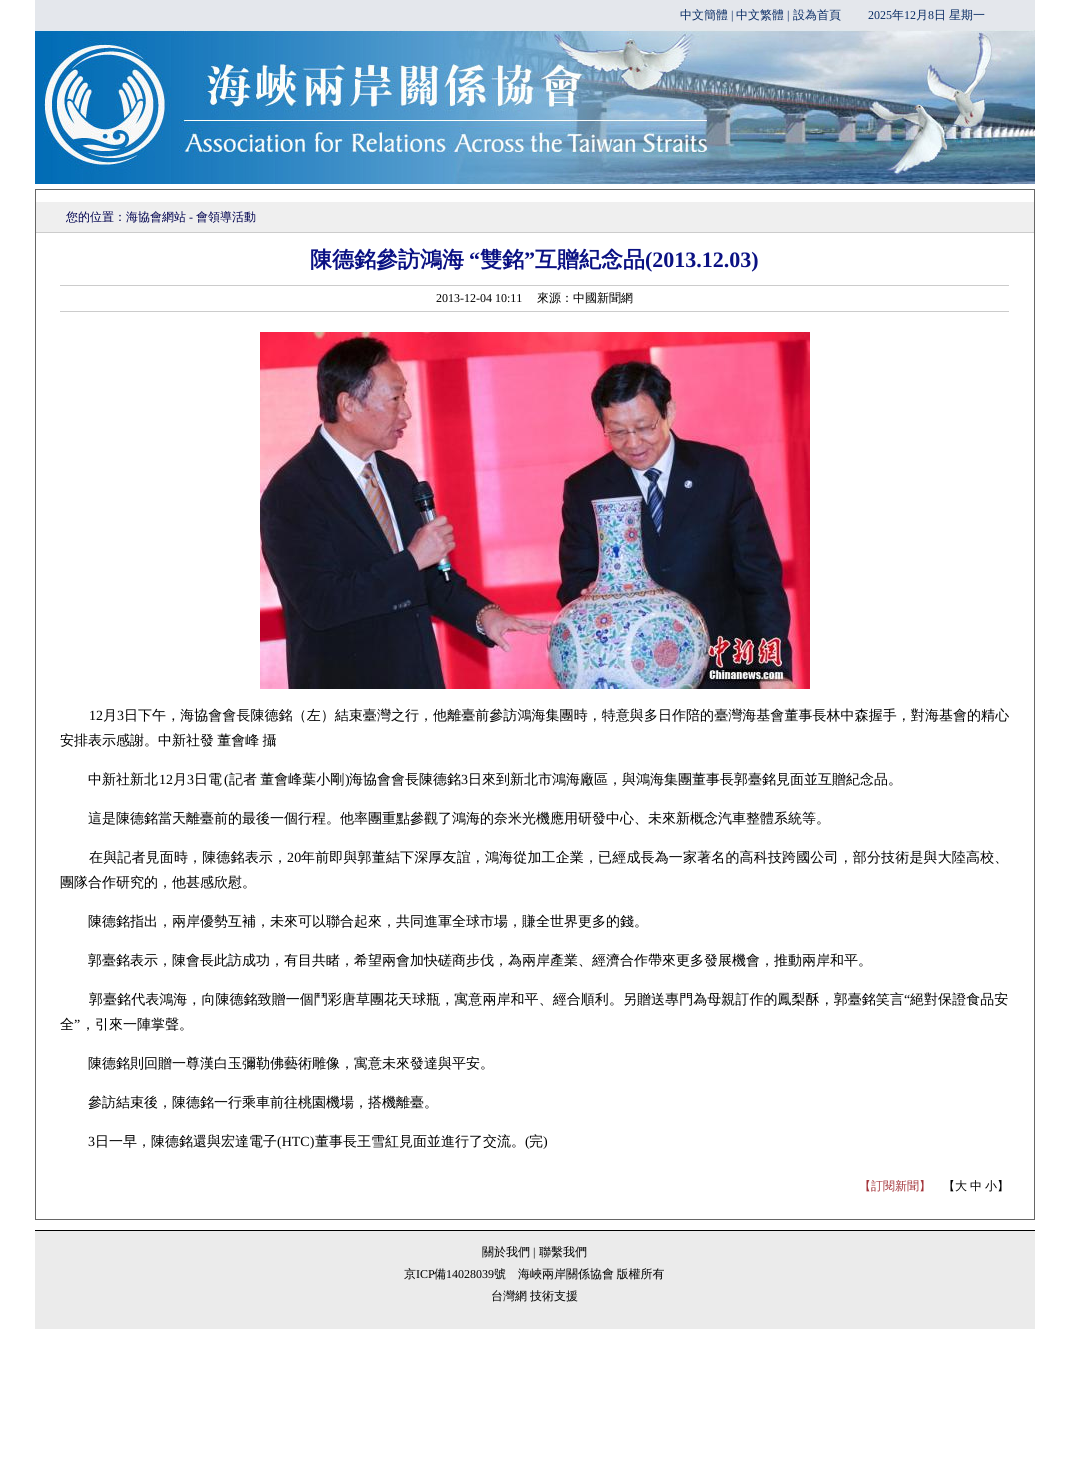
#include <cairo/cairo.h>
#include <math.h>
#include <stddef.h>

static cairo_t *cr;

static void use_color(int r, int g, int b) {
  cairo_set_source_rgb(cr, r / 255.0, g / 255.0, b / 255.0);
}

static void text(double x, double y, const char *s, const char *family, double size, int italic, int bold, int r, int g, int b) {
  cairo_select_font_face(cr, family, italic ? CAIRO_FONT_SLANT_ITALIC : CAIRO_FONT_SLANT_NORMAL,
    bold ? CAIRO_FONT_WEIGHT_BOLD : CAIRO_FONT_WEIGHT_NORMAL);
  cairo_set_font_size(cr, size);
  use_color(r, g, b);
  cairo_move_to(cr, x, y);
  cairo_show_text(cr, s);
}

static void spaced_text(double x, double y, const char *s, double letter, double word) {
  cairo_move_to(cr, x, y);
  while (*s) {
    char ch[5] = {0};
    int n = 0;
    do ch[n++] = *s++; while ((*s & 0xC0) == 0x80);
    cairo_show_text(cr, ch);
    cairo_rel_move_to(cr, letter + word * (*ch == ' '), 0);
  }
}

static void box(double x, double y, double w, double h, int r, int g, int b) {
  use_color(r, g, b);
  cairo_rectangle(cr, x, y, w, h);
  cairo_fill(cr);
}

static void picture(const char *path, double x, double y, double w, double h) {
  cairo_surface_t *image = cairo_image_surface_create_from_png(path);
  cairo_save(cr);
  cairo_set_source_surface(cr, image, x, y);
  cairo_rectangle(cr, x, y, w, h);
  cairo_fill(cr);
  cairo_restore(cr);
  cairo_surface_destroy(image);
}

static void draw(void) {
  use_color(255, 255, 255);
  cairo_paint(cr);
  box(35, 0, 1000, 30, 228, 231, 236);
  picture("img_01.png", 35, 30, 1000, 154);
  cairo_rectangle(cr, 35.5, 189.5, 999, 1030);
  use_color(102, 102, 102);
  cairo_set_line_width(cr, 1);
  cairo_stroke(cr);
  box(36, 202, 998, 30, 239, 239, 239);
  box(36, 232, 998, 1, 204, 204, 204);
  box(60, 285, 949, 1, 204, 204, 204);
  box(60, 311, 949, 1, 204, 204, 204);
  picture("img_02.png", 260, 332, 550, 357);
  box(35, 1231, 1000, 98, 235, 235, 235);
  box(35, 1230, 1000, 1, 0, 0, 0);
  text(680, 19, "中文簡體", "WenQuanYi Zen Hei Medium", 12, 0, 0, 9, 44, 100);
  text(731, 19, "|", "Liberation Serif", 12, 0, 0, 9, 44, 100);
  text(736, 19, "中文繁體", "WenQuanYi Zen Hei Medium", 12, 0, 0, 9, 44, 100);
  text(787, 19, "|", "Liberation Serif", 12, 0, 0, 9, 44, 100);
  text(793, 19, "設為首頁", "WenQuanYi Zen Hei Medium", 12, 0, 0, 9, 44, 100);
  text(868, 19, "2025", "Liberation Serif", 12, 0, 0, 9, 44, 100);
  text(892, 19, "年", "WenQuanYi Zen Hei Medium", 12, 0, 0, 9, 44, 100);
  text(904, 19, "12", "Liberation Serif", 12, 0, 0, 9, 44, 100);
  text(916, 19, "月", "WenQuanYi Zen Hei Medium", 12, 0, 0, 9, 44, 100);
  text(928, 19, "8", "Liberation Serif", 12, 0, 0, 9, 44, 100);
  text(934, 19, "日", "WenQuanYi Zen Hei Medium", 12, 0, 0, 9, 44, 100);
  text(949, 19, "星期一", "WenQuanYi Zen Hei Medium", 12, 0, 0, 9, 44, 100);
  text(66, 221, "您的位置：海協會網站", "WenQuanYi Zen Hei Medium", 12, 0, 0, 0, 2, 79);
  text(189, 221, "-", "Liberation Serif", 12, 0, 0, 0, 2, 79);
  text(196, 221, "會領導活動", "WenQuanYi Zen Hei Medium", 12, 0, 0, 0, 2, 79);
  text(310, 267, "陳德銘參訪鴻海", "WenQuanYi Zen Hei", 22, 0, 1, 10, 17, 131);
  text(469, 267, "“", "Liberation Serif", 22, 0, 1, 10, 17, 131);
  text(480, 267, "雙銘", "WenQuanYi Zen Hei", 22, 0, 1, 10, 17, 131);
  text(524, 267, "”", "Liberation Serif", 22, 0, 1, 10, 17, 131);
  text(535, 267, "互贈紀念品", "WenQuanYi Zen Hei", 22, 0, 1, 10, 17, 131);
  text(645, 267, "(2013.12.03)", "Liberation Serif", 22, 0, 1, 10, 17, 131);
  text(436, 302, "2013-12-04 10:11", "Liberation Serif", 12, 0, 0, 0, 0, 0);
  text(537, 302, "來源：中國新聞網", "WenQuanYi Zen Hei Medium", 12, 0, 0, 0, 0, 0);
  cairo_select_font_face(cr, "Liberation Serif", CAIRO_FONT_SLANT_NORMAL, CAIRO_FONT_WEIGHT_NORMAL);
  cairo_set_font_size(cr, 14);
  spaced_text(89, 720, "12", 0.05, 0);
  cairo_select_font_face(cr, "WenQuanYi Zen Hei Medium", CAIRO_FONT_SLANT_NORMAL, CAIRO_FONT_WEIGHT_NORMAL);
  spaced_text(103, 720, "月", 0.05, 0);
  cairo_select_font_face(cr, "Liberation Serif", CAIRO_FONT_SLANT_NORMAL, CAIRO_FONT_WEIGHT_NORMAL);
  spaced_text(117, 720, "3", 0.05, 0);
  cairo_select_font_face(cr, "WenQuanYi Zen Hei Medium", CAIRO_FONT_SLANT_NORMAL, CAIRO_FONT_WEIGHT_NORMAL);
  spaced_text(124, 720, "日下午，海協會會長陳德銘（左）結束臺灣之行，他離臺前參訪鴻海集團時，特意與多日作陪的臺灣海基會董事長林中森握手，對海基會的精心", 0.05, 0);
  spaced_text(60, 745, "安排表示感謝。中新社發 董會峰 攝", 0, -1);
  text(88, 784, "中新社新北", "WenQuanYi Zen Hei Medium", 14, 0, 0, 0, 0, 0);
  text(159, 784, "12", "Liberation Serif", 14, 0, 0, 0, 0, 0);
  text(173, 784, "月", "WenQuanYi Zen Hei Medium", 14, 0, 0, 0, 0, 0);
  text(187, 784, "3", "Liberation Serif", 14, 0, 0, 0, 0, 0);
  text(194, 784, "日電", "WenQuanYi Zen Hei Medium", 14, 0, 0, 0, 0, 0);
  text(224, 784, "(", "Liberation Serif", 14, 0, 0, 0, 0, 0);
  cairo_select_font_face(cr, "WenQuanYi Zen Hei Medium", CAIRO_FONT_SLANT_NORMAL, CAIRO_FONT_WEIGHT_NORMAL);
  spaced_text(229, 784, "記者 董會峰葉小剛", 0, -1);
  text(345, 784, ")", "Liberation Serif", 14, 0, 0, 0, 0, 0);
  text(349, 784, "海協會會長陳德銘", "WenQuanYi Zen Hei Medium", 14, 0, 0, 0, 0, 0);
  text(461, 784, "3", "Liberation Serif", 14, 0, 0, 0, 0, 0);
  text(468, 784, "日來到新北市鴻海廠區，與鴻海集團董事長郭臺銘見面並互贈紀念品。", "WenQuanYi Zen Hei Medium", 14, 0, 0, 0, 0, 0);
  text(88, 823, "這是陳德銘當天離臺前的最後一個行程。他率團重點參觀了鴻海的奈米光機應用研發中心、未來新概念汽車整體系統等。", "WenQuanYi Zen Hei Medium", 14, 0, 0, 0, 0, 0);
  spaced_text(89, 862, "在與記者見面時，陳德銘表示，", 0.15, 0);
  cairo_select_font_face(cr, "Liberation Serif", CAIRO_FONT_SLANT_NORMAL, CAIRO_FONT_WEIGHT_NORMAL);
  spaced_text(287, 862, "20", 0.15, 0);
  cairo_select_font_face(cr, "WenQuanYi Zen Hei Medium", CAIRO_FONT_SLANT_NORMAL, CAIRO_FONT_WEIGHT_NORMAL);
  spaced_text(301, 862, "年前即與郭董結下深厚友誼，鴻海從加工企業，已經成長為一家著名的高科技跨國公司，部分技術是與大陸高校、", 0.15, 0);
  text(60, 887, "團隊合作研究的，他甚感欣慰。", "WenQuanYi Zen Hei Medium", 14, 0, 0, 0, 0, 0);
  text(88, 926, "陳德銘指出，兩岸優勢互補，未來可以聯合起來，共同進軍全球市場，賺全世界更多的錢。", "WenQuanYi Zen Hei Medium", 14, 0, 0, 0, 0, 0);
  text(88, 965, "郭臺銘表示，陳會長此訪成功，有目共睹，希望兩會加快磋商步伐，為兩岸產業、經濟合作帶來更多發展機會，推動兩岸和平。", "WenQuanYi Zen Hei Medium", 14, 0, 0, 0, 0, 0);
  spaced_text(89, 1004, "郭臺銘代表鴻海，向陳德銘致贈一個鬥彩唐草團花天球瓶，寓意兩岸和平、經合順利。另贈送專門為母親訂作的鳳梨酥，郭臺銘笑言", 0.05, 0);
  cairo_select_font_face(cr, "Liberation Serif", CAIRO_FONT_SLANT_NORMAL, CAIRO_FONT_WEIGHT_NORMAL);
  spaced_text(904, 1004, "“", 0.05, 0);
  cairo_select_font_face(cr, "WenQuanYi Zen Hei Medium", CAIRO_FONT_SLANT_NORMAL, CAIRO_FONT_WEIGHT_NORMAL);
  spaced_text(910, 1004, "絕對保證食品安", 0.05, 0);
  text(60, 1029, "全", "WenQuanYi Zen Hei Medium", 14, 0, 0, 0, 0, 0);
  text(74, 1029, "”", "Liberation Serif", 14, 0, 0, 0, 0, 0);
  text(81, 1029, "，引來一陣掌聲。", "WenQuanYi Zen Hei Medium", 14, 0, 0, 0, 0, 0);
  text(88, 1068, "陳德銘則回贈一尊漢白玉彌勒佛藝術雕像，寓意未來發達與平安。", "WenQuanYi Zen Hei Medium", 14, 0, 0, 0, 0, 0);
  text(88, 1107, "參訪結束後，陳德銘一行乘車前往桃園機場，搭機離臺。", "WenQuanYi Zen Hei Medium", 14, 0, 0, 0, 0, 0);
  text(88, 1146, "3", "Liberation Serif", 14, 0, 0, 0, 0, 0);
  text(95, 1146, "日一早，陳德銘還與宏達電子", "WenQuanYi Zen Hei Medium", 14, 0, 0, 0, 0, 0);
  text(277, 1146, "(HTC)", "Liberation Serif", 14, 0, 0, 0, 0, 0);
  text(315, 1146, "董事長王雪紅見面並進行了交流。", "WenQuanYi Zen Hei Medium", 14, 0, 0, 0, 0, 0);
  text(525, 1146, "(", "Liberation Serif", 14, 0, 0, 0, 0, 0);
  text(529, 1146, "完", "WenQuanYi Zen Hei Medium", 14, 0, 0, 0, 0, 0);
  text(543, 1146, ")", "Liberation Serif", 14, 0, 0, 0, 0, 0);
  text(859, 1190, "【訂閱新聞】", "WenQuanYi Zen Hei Medium", 12, 0, 0, 163, 52, 58);
  text(943, 1190, "【大", "WenQuanYi Zen Hei Medium", 12, 0, 0, 0, 0, 0);
  text(970, 1190, "中", "WenQuanYi Zen Hei Medium", 12, 0, 0, 0, 0, 0);
  text(985, 1190, "小】", "WenQuanYi Zen Hei Medium", 12, 0, 0, 0, 0, 0);
  text(482, 1256, "關於我們", "WenQuanYi Zen Hei Medium", 12, 0, 0, 0, 0, 0);
  text(533, 1256, "|", "Liberation Serif", 12, 0, 0, 0, 0, 0);
  text(539, 1256, "聯繫我們", "WenQuanYi Zen Hei Medium", 12, 0, 0, 0, 0, 0);
  text(404, 1278, "京", "WenQuanYi Zen Hei Medium", 12, 0, 0, 0, 0, 0);
  text(416, 1278, "ICP", "Liberation Serif", 12, 0, 0, 0, 0, 0);
  text(434, 1278, "備", "WenQuanYi Zen Hei Medium", 12, 0, 0, 0, 0, 0);
  text(446, 1278, "14028039", "Liberation Serif", 12, 0, 0, 0, 0, 0);
  text(494, 1278, "號", "WenQuanYi Zen Hei Medium", 12, 0, 0, 0, 0, 0);
  spaced_text(518, 1278, "海峽兩岸關係協會 版權所有", 0, -1);
  text(491, 1300, "台灣網", "WenQuanYi Zen Hei Medium", 12, 0, 0, 0, 0, 0);
  text(530, 1300, "技術支援", "WenQuanYi Zen Hei Medium", 12, 0, 0, 0, 0, 0);
}

int main(void) {
  cairo_surface_t *surface = cairo_image_surface_create(CAIRO_FORMAT_RGB24, 1069, 1457);
  cr = cairo_create(surface);
  cairo_font_options_t *options = cairo_font_options_create();
  cairo_font_options_set_hint_metrics(options, CAIRO_HINT_METRICS_OFF);
  cairo_font_options_set_hint_style(options, CAIRO_HINT_STYLE_NONE);
  cairo_set_font_options(cr, options);
  cairo_set_miter_limit(cr, 4);
  draw();
  cairo_surface_write_to_png(surface, "out.png");
  cairo_font_options_destroy(options);
  cairo_destroy(cr);
  cairo_surface_destroy(surface);
  return 0;
}
